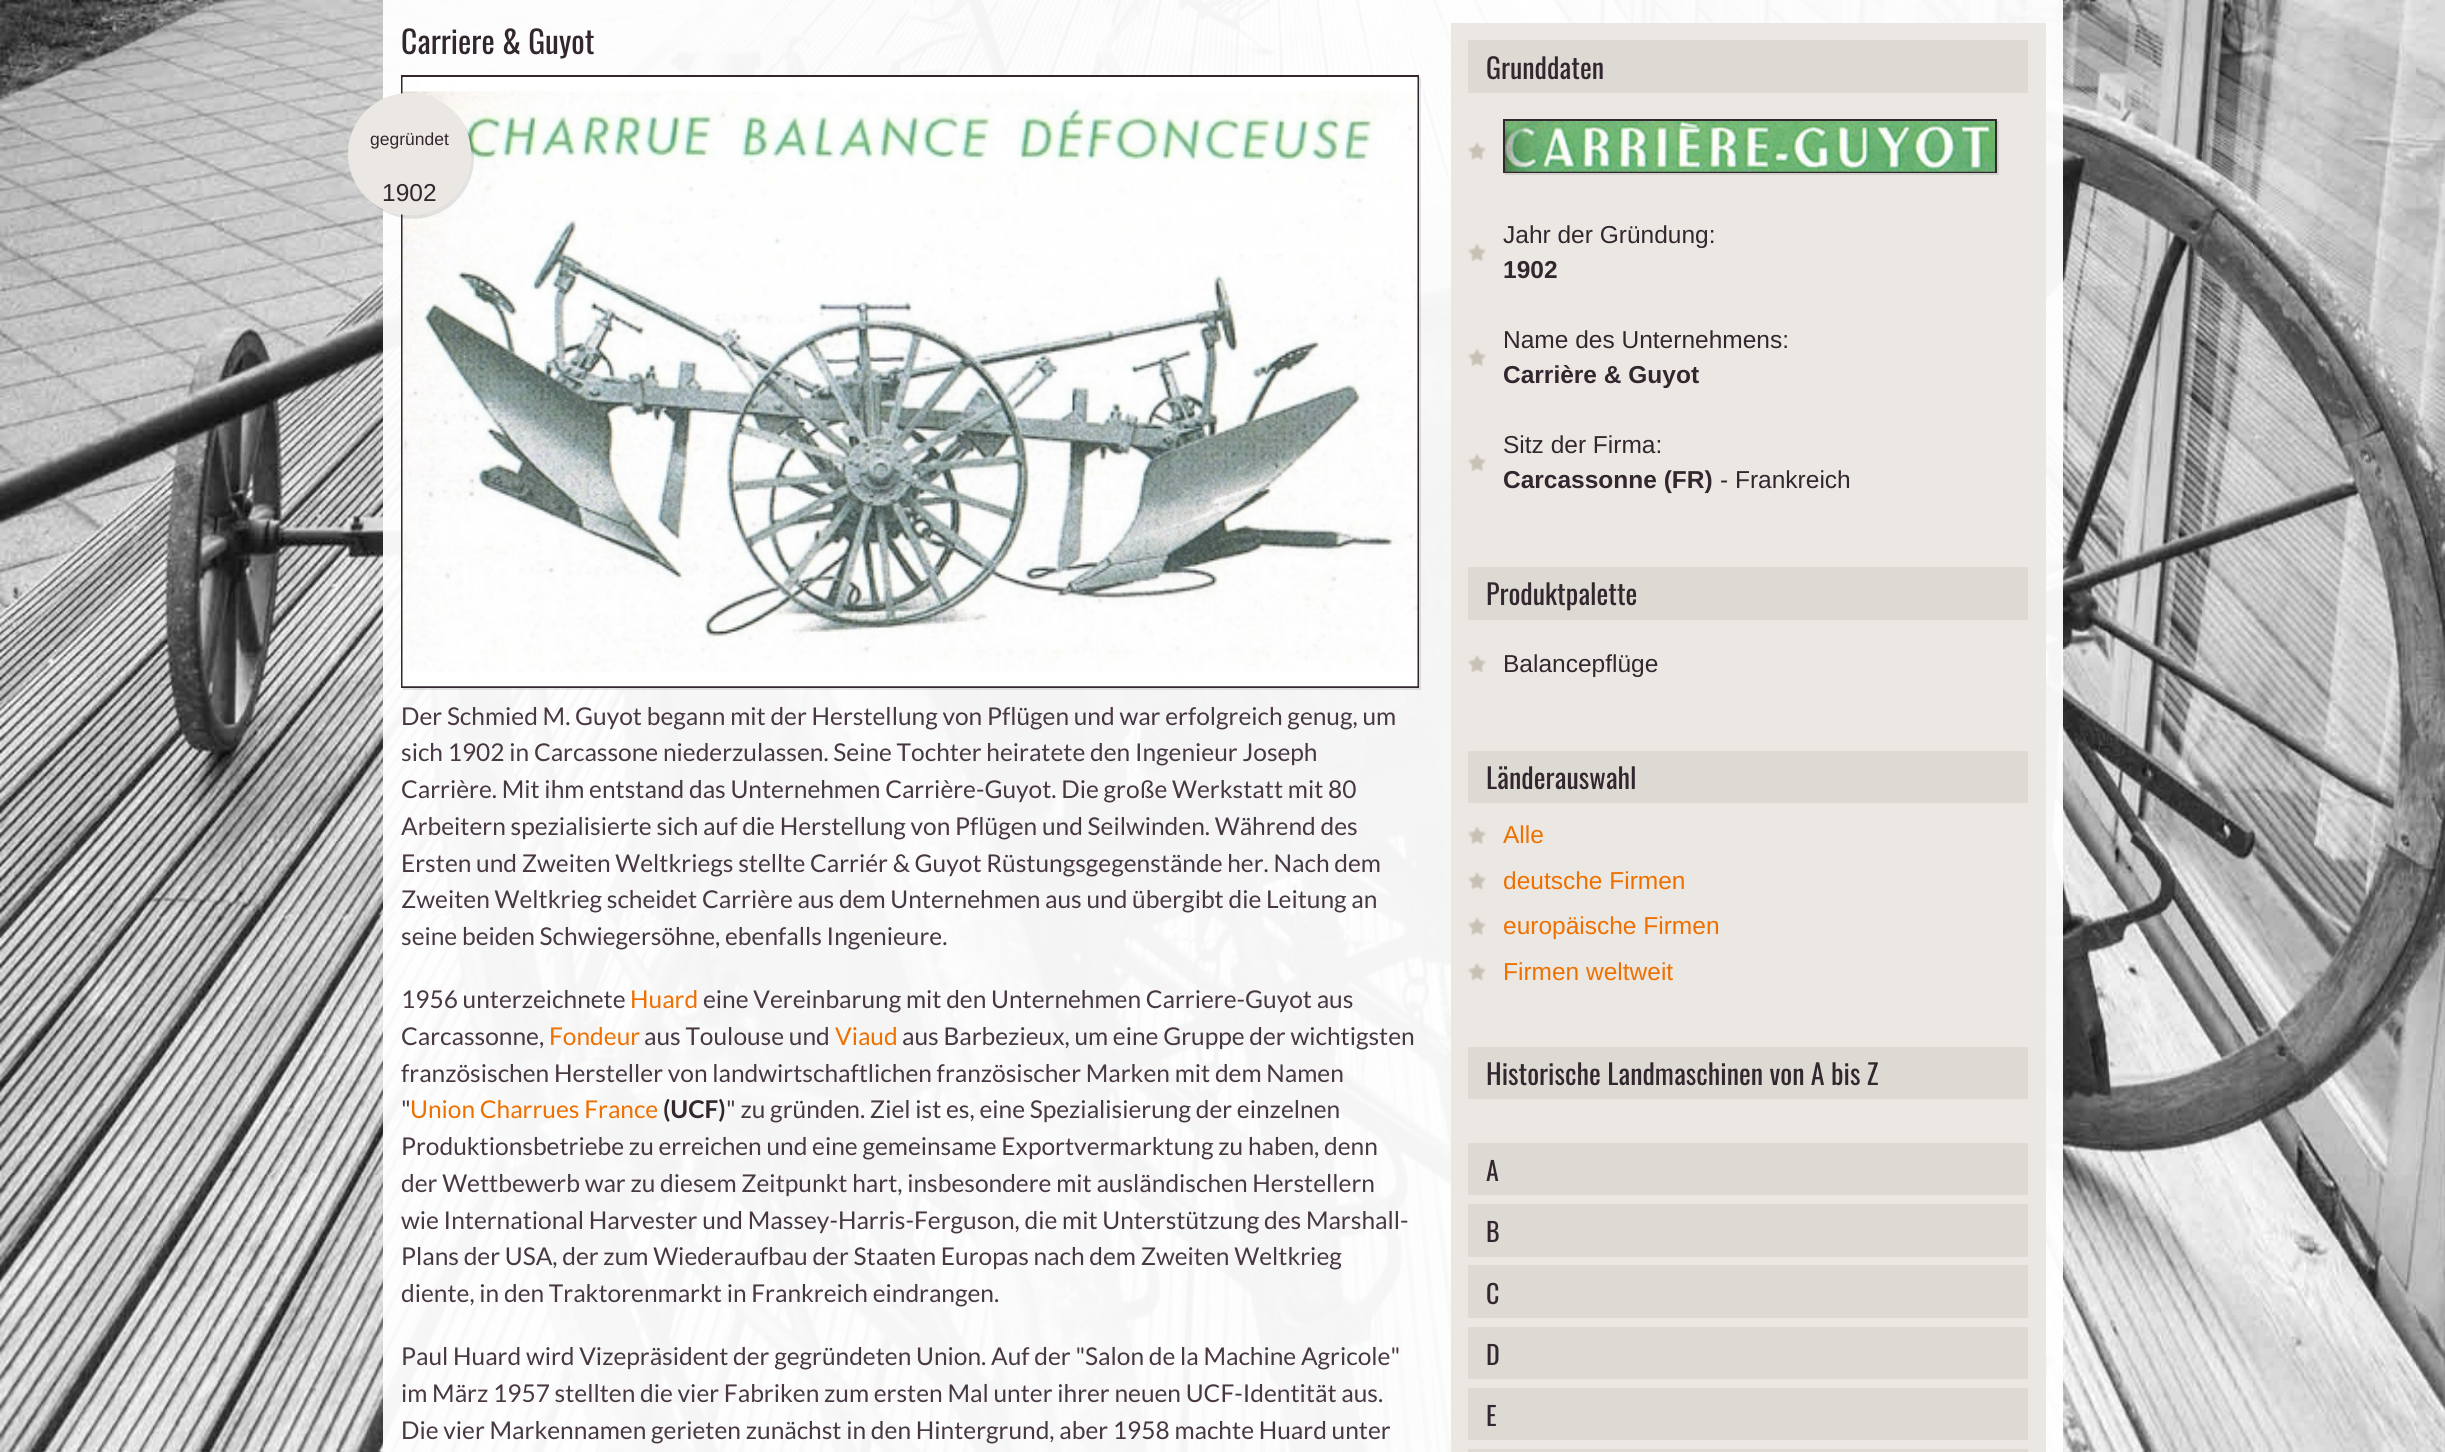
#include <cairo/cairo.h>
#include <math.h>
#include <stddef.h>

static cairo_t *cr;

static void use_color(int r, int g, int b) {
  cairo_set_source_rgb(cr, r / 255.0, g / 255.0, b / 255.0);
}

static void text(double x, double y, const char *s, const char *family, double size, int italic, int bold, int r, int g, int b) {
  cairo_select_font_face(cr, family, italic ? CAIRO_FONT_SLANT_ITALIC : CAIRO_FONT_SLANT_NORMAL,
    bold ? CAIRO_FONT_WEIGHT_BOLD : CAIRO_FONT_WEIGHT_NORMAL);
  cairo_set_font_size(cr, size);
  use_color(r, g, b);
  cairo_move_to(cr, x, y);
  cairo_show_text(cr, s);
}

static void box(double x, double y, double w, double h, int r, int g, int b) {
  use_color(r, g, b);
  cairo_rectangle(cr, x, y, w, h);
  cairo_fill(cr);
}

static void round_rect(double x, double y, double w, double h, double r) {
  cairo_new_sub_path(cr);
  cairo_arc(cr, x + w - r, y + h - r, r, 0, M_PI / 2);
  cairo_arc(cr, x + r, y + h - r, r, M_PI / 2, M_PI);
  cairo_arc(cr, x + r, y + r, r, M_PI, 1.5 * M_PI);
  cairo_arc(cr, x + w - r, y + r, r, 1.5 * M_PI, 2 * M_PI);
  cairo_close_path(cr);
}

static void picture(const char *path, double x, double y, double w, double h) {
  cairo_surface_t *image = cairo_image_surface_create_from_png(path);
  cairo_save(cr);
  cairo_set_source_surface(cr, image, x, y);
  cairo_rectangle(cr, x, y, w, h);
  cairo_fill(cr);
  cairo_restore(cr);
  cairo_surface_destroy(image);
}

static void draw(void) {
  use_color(255, 255, 255);
  cairo_paint(cr);
  picture("img_02.png", 0, 1451, 2445, 1);
  picture("img_01.png", 0, 0, 2445, 1452);
  cairo_set_source_rgba(cr, 1, 1, 1, 0.95);
  cairo_rectangle(cr, 383, 0, 1680, 1452);
  cairo_fill(cr);
  cairo_set_source_rgba(cr, 0, 0, 0, 0.1);
  cairo_new_path(cr);
  cairo_move_to(cr, 403, 688);
  cairo_line_to(cr, 403, 690);
  cairo_line_to(cr, 1421, 690);
  cairo_line_to(cr, 1421, 77);
  cairo_line_to(cr, 1419, 77);
  cairo_line_to(cr, 1419, 688);
  cairo_close_path(cr);
  cairo_fill(cr);
  cairo_rectangle(cr, 402, 76, 1016, 611);
  use_color(50, 39, 47);
  cairo_stroke(cr);
  picture("img_03.png", 402, 77, 1016, 610);
  cairo_set_source_rgba(cr, 0, 0, 0, 0.1);
  cairo_new_path(cr);
  cairo_move_to(cr, 367, 198);
  cairo_curve_to(cr, 390, 224, 431, 226, 456, 201);
  cairo_curve_to(cr, 481, 176, 480, 135, 453, 111);
  cairo_curve_to(cr, 477, 135, 477, 174, 453, 197);
  cairo_curve_to(cr, 429, 221, 391, 221, 367, 198);
  cairo_close_path(cr);
  cairo_fill(cr);
  use_color(235, 231, 226);
  round_rect(348, 93, 123, 122, 61);
  cairo_fill(cr);
  box(1451, 23, 595, 1429, 235, 231, 226);
  box(1468, 40, 560, 53, 221, 217, 211);
  picture("img_04.png", 1468, 142, 18, 18);
  use_color(212, 208, 203);
  cairo_new_path(cr);
  cairo_move_to(cr, 1505, 173);
  cairo_line_to(cr, 1505, 175);
  cairo_line_to(cr, 1999, 175);
  cairo_line_to(cr, 1999, 121);
  cairo_line_to(cr, 1997, 121);
  cairo_line_to(cr, 1997, 173);
  cairo_close_path(cr);
  cairo_fill(cr);
  cairo_rectangle(cr, 1504, 120, 492, 52);
  use_color(50, 39, 47);
  cairo_stroke(cr);
  picture("img_05.png", 1505, 121, 490, 51);
  picture("img_06.png", 1468, 243, 18, 18);
  picture("img_06.png", 1468, 348, 18, 18);
  picture("img_06.png", 1468, 453, 18, 18);
  box(1468, 567, 560, 53, 221, 217, 211);
  picture("img_07.png", 1468, 655, 18, 18);
  box(1468, 751, 560, 52, 221, 217, 211);
  picture("img_08.png", 1468, 826, 18, 18);
  picture("img_07.png", 1468, 872, 18, 18);
  picture("img_08.png", 1468, 917, 18, 18);
  picture("img_07.png", 1468, 963, 18, 18);
  box(1468, 1047, 560, 52, 221, 217, 211);
  box(1468, 1143, 560, 52, 221, 217, 211);
  box(1468, 1204, 560, 53, 221, 217, 211);
  box(1468, 1265, 560, 53, 221, 217, 211);
  box(1468, 1327, 560, 52, 221, 217, 211);
  box(1468, 1388, 560, 52, 221, 217, 211);
  box(1468, 1449, 560, 3, 221, 217, 211);
  text(401, 54, "Carriere & Guyot", "Oswald", 31.5, 0, 0, 50, 39, 47);
  text(370, 145, "gegründet", "Liberation Sans", 17.5, 0, 0, 50, 39, 47);
  text(382, 201, "1902", "Liberation Sans", 24.5, 0, 0, 50, 39, 47);
  text(401, 725, "Der Schmied M. Guyot begann mit der Herstellung von Pflügen und war erfolgreich genug, um", "Lato", 24.5, 0, 0, 72, 56, 68);
  text(401, 761, "sich 1902 in Carcassone niederzulassen. Seine Tochter heiratete den Ingenieur Joseph", "Lato", 24.5, 0, 0, 72, 56, 68);
  text(401, 798, "Carrière. Mit ihm entstand das Unternehmen Carrière-Guyot. Die große Werkstatt mit 80", "Lato", 24.5, 0, 0, 72, 56, 68);
  text(401, 835, "Arbeitern spezialisierte sich auf die Herstellung von Pflügen und Seilwinden. Während des", "Lato", 24.5, 0, 0, 72, 56, 68);
  text(401, 872, "Ersten und Zweiten Weltkriegs stellte Carriér & Guyot Rüstungsgegenstände her. Nach dem", "Lato", 24.5, 0, 0, 72, 56, 68);
  text(401, 908, "Zweiten Weltkrieg scheidet Carrière aus dem Unternehmen aus und übergibt die Leitung an", "Lato", 24.5, 0, 0, 72, 56, 68);
  text(401, 945, "seine beiden Schwiegersöhne, ebenfalls Ingenieure.", "Lato", 24.5, 0, 0, 72, 56, 68);
  text(401, 1008, "1956 unterzeichnete", "Lato", 24.5, 0, 0, 72, 56, 68);
  text(630, 1008, "Huard", "Lato", 24.5, 0, 0, 238, 112, 0);
  text(703, 1008, "eine Vereinbarung mit den Unternehmen Carriere-Guyot aus", "Lato", 24.5, 0, 0, 72, 56, 68);
  text(401, 1045, "Carcassonne,", "Lato", 24.5, 0, 0, 72, 56, 68);
  text(549, 1045, "Fondeur", "Lato", 24.5, 0, 0, 238, 112, 0);
  text(644, 1045, "aus Toulouse und", "Lato", 24.5, 0, 0, 72, 56, 68);
  text(835, 1045, "Viaud", "Lato", 24.5, 0, 0, 238, 112, 0);
  text(902, 1045, "aus Barbezieux, um eine Gruppe der wichtigsten", "Lato", 24.5, 0, 0, 72, 56, 68);
  text(401, 1082, "französischen Hersteller von landwirtschaftlichen französischer Marken mit dem Namen", "Lato", 24.5, 0, 0, 72, 56, 68);
  text(401, 1118, "\"", "Lato", 24.5, 0, 0, 72, 56, 68);
  text(410, 1118, "Union Charrues France", "Lato", 24.5, 0, 0, 238, 112, 0);
  text(663, 1118, "(UCF)", "Lato", 24.5, 0, 1, 50, 39, 47);
  text(726, 1118, "\" zu gründen. Ziel ist es, eine Spezialisierung der einzelnen", "Lato", 24.5, 0, 0, 72, 56, 68);
  text(401, 1155, "Produktionsbetriebe zu erreichen und eine gemeinsame Exportvermarktung zu haben, denn", "Lato", 24.5, 0, 0, 72, 56, 68);
  text(401, 1192, "der Wettbewerb war zu diesem Zeitpunkt hart, insbesondere mit ausländischen Herstellern", "Lato", 24.5, 0, 0, 72, 56, 68);
  text(401, 1229, "wie International Harvester und Massey-Harris-Ferguson, die mit Unterstützung des Marshall-", "Lato", 24.5, 0, 0, 72, 56, 68);
  text(401, 1265, "Plans der USA, der zum Wiederaufbau der Staaten Europas nach dem Zweiten Weltkrieg", "Lato", 24.5, 0, 0, 72, 56, 68);
  text(401, 1302, "diente, in den Traktorenmarkt in Frankreich eindrangen.", "Lato", 24.5, 0, 0, 72, 56, 68);
  text(401, 1365, "Paul Huard wird Vizepräsident der gegründeten Union. Auf der \"Salon de la Machine Agricole\"", "Lato", 24.5, 0, 0, 72, 56, 68);
  text(401, 1402, "im März 1957 stellten die vier Fabriken zum ersten Mal unter ihrer neuen UCF-Identität aus.", "Lato", 24.5, 0, 0, 72, 56, 68);
  text(401, 1439, "Die vier Markennamen gerieten zunächst in den Hintergrund, aber 1958 machte Huard unter", "Lato", 24.5, 0, 0, 72, 56, 68);
  text(1486, 79, "Grunddaten", "Oswald", 28, 0, 0, 50, 39, 47);
  text(1503, 243, "Jahr der Gründung:", "Liberation Sans", 24.5, 0, 0, 50, 39, 47);
  text(1503, 278, "1902", "Liberation Sans", 24.5, 0, 1, 50, 39, 47);
  text(1503, 348, "Name des Unternehmens:", "Liberation Sans", 24.5, 0, 0, 50, 39, 47);
  text(1503, 383, "Carrière & Guyot", "Liberation Sans", 24.5, 0, 1, 50, 39, 47);
  text(1503, 453, "Sitz der Firma:", "Liberation Sans", 24.5, 0, 0, 50, 39, 47);
  text(1503, 488, "Carcassonne (FR)", "Liberation Sans", 24.5, 0, 1, 50, 39, 47);
  text(1720, 488, "- Frankreich", "Liberation Sans", 24.5, 0, 0, 50, 39, 47);
  text(1486, 605, "Produktpalette", "Oswald", 28, 0, 0, 50, 39, 47);
  text(1503, 672, "Balancepflüge", "Liberation Sans", 24.5, 0, 0, 50, 39, 47);
  text(1486, 789, "Länderauswahl", "Oswald", 28, 0, 0, 50, 39, 47);
  text(1503, 843, "Alle", "Liberation Sans", 24.5, 0, 0, 238, 112, 0);
  text(1503, 889, "deutsche Firmen", "Liberation Sans", 24.5, 0, 0, 238, 112, 0);
  text(1503, 934, "europäische Firmen", "Liberation Sans", 24.5, 0, 0, 238, 112, 0);
  text(1503, 980, "Firmen weltweit", "Liberation Sans", 24.5, 0, 0, 238, 112, 0);
  text(1486, 1085, "Historische Landmaschinen von A bis Z", "Oswald", 28, 0, 0, 50, 39, 47);
  text(1486, 1181, "A", "Oswald", 26, 0, 0, 50, 39, 47);
  text(1486, 1242, "B", "Oswald", 26, 0, 0, 50, 39, 47);
  text(1486, 1304, "C", "Oswald", 26, 0, 0, 50, 39, 47);
  text(1486, 1365, "D", "Oswald", 26, 0, 0, 50, 39, 47);
  text(1486, 1426, "E", "Oswald", 26, 0, 0, 50, 39, 47);
}

int main(void) {
  cairo_surface_t *surface = cairo_image_surface_create(CAIRO_FORMAT_RGB24, 2445, 1452);
  cr = cairo_create(surface);
  cairo_font_options_t *options = cairo_font_options_create();
  cairo_font_options_set_hint_metrics(options, CAIRO_HINT_METRICS_OFF);
  cairo_font_options_set_hint_style(options, CAIRO_HINT_STYLE_NONE);
  cairo_set_font_options(cr, options);
  cairo_set_miter_limit(cr, 4);
  draw();
  cairo_surface_write_to_png(surface, "out.png");
  cairo_font_options_destroy(options);
  cairo_destroy(cr);
  cairo_surface_destroy(surface);
  return 0;
}
